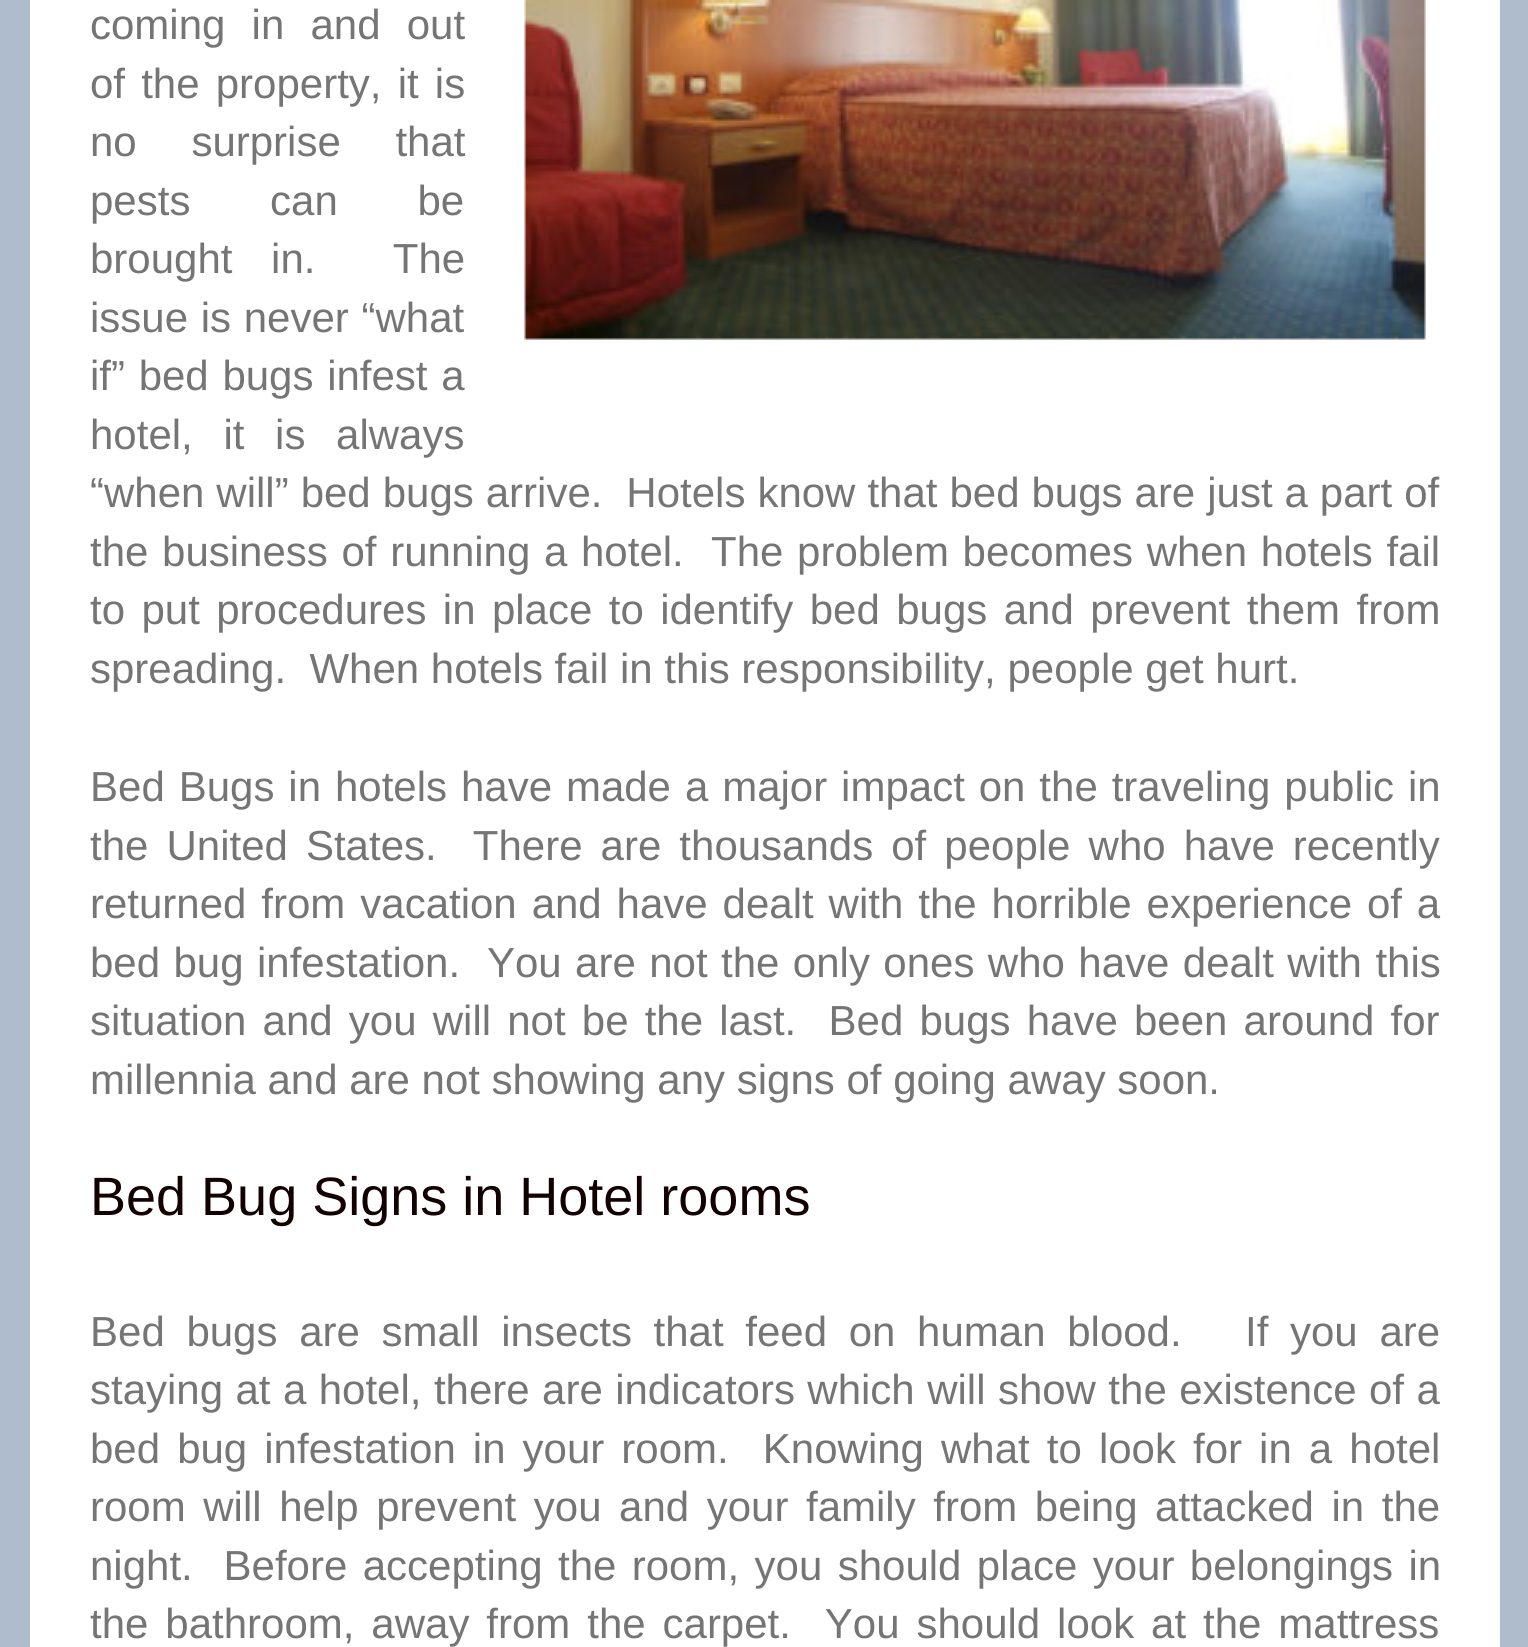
#include <cairo/cairo.h>
#include <math.h>
#include <stddef.h>

static cairo_t *cr;

static void use_color(int r, int g, int b) {
  cairo_set_source_rgb(cr, r / 255.0, g / 255.0, b / 255.0);
}

static void text(double x, double y, const char *s, const char *family, double size, int italic, int bold, int r, int g, int b) {
  cairo_select_font_face(cr, family, italic ? CAIRO_FONT_SLANT_ITALIC : CAIRO_FONT_SLANT_NORMAL,
    bold ? CAIRO_FONT_WEIGHT_BOLD : CAIRO_FONT_WEIGHT_NORMAL);
  cairo_set_font_size(cr, size);
  use_color(r, g, b);
  cairo_move_to(cr, x, y);
  cairo_show_text(cr, s);
}

static void spaced_text(double x, double y, const char *s, double letter, double word) {
  cairo_move_to(cr, x, y);
  while (*s) {
    char ch[5] = {0};
    int n = 0;
    do ch[n++] = *s++; while ((*s & 0xC0) == 0x80);
    cairo_show_text(cr, ch);
    cairo_rel_move_to(cr, letter + word * (*ch == ' '), 0);
  }
}

static void box(double x, double y, double w, double h, int r, int g, int b) {
  use_color(r, g, b);
  cairo_rectangle(cr, x, y, w, h);
  cairo_fill(cr);
}

static void picture(const char *path, double x, double y, double w, double h) {
  cairo_surface_t *image = cairo_image_surface_create_from_png(path);
  cairo_save(cr);
  cairo_set_source_surface(cr, image, x, y);
  cairo_rectangle(cr, x, y, w, h);
  cairo_fill(cr);
  cairo_restore(cr);
  cairo_surface_destroy(image);
}

static void draw(void) {
  use_color(174, 188, 203);
  cairo_paint(cr);
  box(30, 0, 1470, 1647, 255, 255, 255);
  picture("img_01.png", 524, 0, 902, 340);
  cairo_select_font_face(cr, "Liberation Sans", CAIRO_FONT_SLANT_NORMAL, CAIRO_FONT_WEIGHT_NORMAL);
  cairo_set_font_size(cr, 42);
  use_color(117, 117, 117);
  spaced_text(90, 39, "coming in and out", 0, 14.5);
  spaced_text(90, 98, "of the property, it is", 0, 4.5);
  spaced_text(90, 156, "no surprise that", 0, 43);
  spaced_text(90, 215, "pests can be", 0, 68);
  spaced_text(90, 273, "brought in.  The", 0, 27);
  spaced_text(90, 332, "issue is never “what", 0, 1);
  spaced_text(90, 390, "if” bed bugs infest a", 0, 2);
  spaced_text(90, 449, "hotel, it is always", 0, 19);
  spaced_text(90, 507, "“when will” bed bugs arrive.  Hotels know that bed bugs are just a part of", 0, 0.3);
  spaced_text(90, 566, "the business of running a hotel.  The problem becomes when hotels fail", 0, 2);
  spaced_text(90, 624, "to put procedures in place to identify bed bugs and prevent them from", 0, 4.75);
  text(90, 683, "spreading.  When hotels fail in this responsibility, people get hurt.", "Liberation Sans", 42, 0, 0, 117, 117, 117);
  spaced_text(90, 801, "Bed Bugs in hotels have made a major impact on the traveling public in", 0, 2.25);
  spaced_text(90, 860, "the United States.  There are thousands of people who have recently", 0, 6.4);
  spaced_text(90, 918, "returned from vacation and have dealt with the horrible experience of a", 0, 3.25);
  spaced_text(90, 977, "bed bug infestation.  You are not the only ones who have dealt with this", 0, 1.75);
  spaced_text(90, 1035, "situation and you will not be the last.  Bed bugs have been around for", 0, 4.5);
  text(90, 1094, "millennia and are not showing any signs of going away soon.", "Liberation Sans", 42, 0, 0, 117, 117, 117);
  text(90, 1215, "Bed Bug Signs in Hotel rooms", "Liberation Sans", 54, 0, 0, 19, 0, 0);
  cairo_set_font_size(cr, 42);
  use_color(117, 117, 117);
  spaced_text(90, 1346, "Bed bugs are small insects that feed on human blood.", 0, 10);
  spaced_text(1245, 1346, "If you are", 0, 10);
  spaced_text(90, 1404, "staying at a hotel, there are indicators which will show the existence of a", 0, 0.75);
  spaced_text(90, 1463, "bed bug infestation in your room.  Knowing what to look for in a hotel", 0, 5.4);
  spaced_text(90, 1521, "room will help prevent you and your family from being attacked in the", 0, 5.9);
  spaced_text(90, 1580, "night.  Before accepting the room, you should place your belongings in", 0, 3.75);
  spaced_text(90, 1638, "the bathroom, away from the carpet.  You should look at the mattress", 0, 5.25);
}

int main(void) {
  cairo_surface_t *surface = cairo_image_surface_create(CAIRO_FORMAT_RGB24, 1528, 1647);
  cr = cairo_create(surface);
  cairo_font_options_t *options = cairo_font_options_create();
  cairo_font_options_set_hint_metrics(options, CAIRO_HINT_METRICS_OFF);
  cairo_font_options_set_hint_style(options, CAIRO_HINT_STYLE_NONE);
  cairo_set_font_options(cr, options);
  cairo_set_miter_limit(cr, 4);
  draw();
  cairo_surface_write_to_png(surface, "out.png");
  cairo_font_options_destroy(options);
  cairo_destroy(cr);
  cairo_surface_destroy(surface);
  return 0;
}
